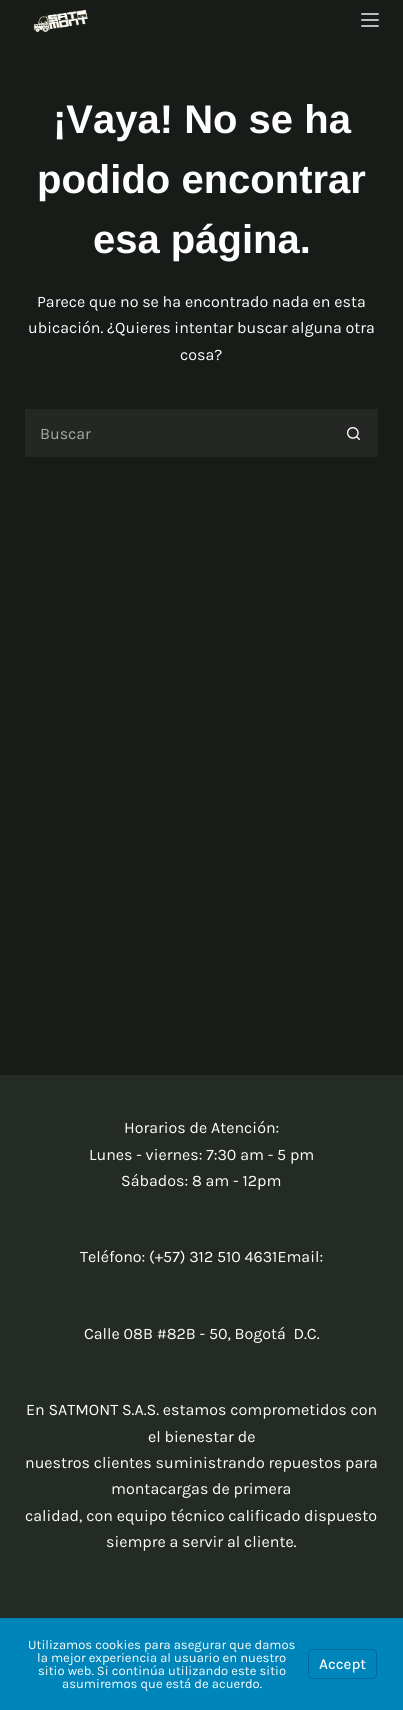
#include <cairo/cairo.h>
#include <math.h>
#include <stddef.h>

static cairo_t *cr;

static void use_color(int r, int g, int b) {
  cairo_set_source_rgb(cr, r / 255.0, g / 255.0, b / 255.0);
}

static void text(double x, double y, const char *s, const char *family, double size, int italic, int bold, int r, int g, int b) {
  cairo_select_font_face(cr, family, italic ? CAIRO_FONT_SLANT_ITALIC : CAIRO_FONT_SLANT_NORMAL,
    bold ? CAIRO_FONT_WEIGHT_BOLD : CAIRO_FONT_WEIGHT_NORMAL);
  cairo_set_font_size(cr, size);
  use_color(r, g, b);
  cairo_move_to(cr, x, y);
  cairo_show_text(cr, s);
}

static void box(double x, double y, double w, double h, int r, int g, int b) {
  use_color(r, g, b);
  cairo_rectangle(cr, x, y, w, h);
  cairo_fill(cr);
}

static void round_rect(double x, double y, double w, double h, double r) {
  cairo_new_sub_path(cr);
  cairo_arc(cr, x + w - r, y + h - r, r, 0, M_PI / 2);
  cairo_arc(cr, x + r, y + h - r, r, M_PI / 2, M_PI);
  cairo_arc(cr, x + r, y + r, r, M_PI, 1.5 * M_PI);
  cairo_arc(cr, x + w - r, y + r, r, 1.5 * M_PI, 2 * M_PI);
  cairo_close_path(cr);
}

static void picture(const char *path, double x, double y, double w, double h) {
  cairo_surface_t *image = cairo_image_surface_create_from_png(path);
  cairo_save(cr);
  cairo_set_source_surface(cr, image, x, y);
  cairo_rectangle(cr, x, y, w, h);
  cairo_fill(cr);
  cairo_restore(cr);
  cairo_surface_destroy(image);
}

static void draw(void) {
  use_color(24, 28, 24);
  cairo_paint(cr);
  picture("img_01.png", 33, 9, 55, 23);
  use_color(186, 187, 186);
  round_rect(361, 13, 18, 2, 1);
  cairo_fill(cr);
  round_rect(361, 19, 18, 2, 1);
  cairo_fill(cr);
  round_rect(361, 25, 18, 2, 1);
  cairo_fill(cr);
  box(25, 409, 353, 48, 36, 39, 36);
  picture("img_02.png", 347, 427, 13, 13);
  box(0, 1075, 403, 543, 36, 42, 36);
  box(0, 1618, 403, 92, 0, 133, 186);
  round_rect(308.5, 1649.5, 68, 29, 4.5);
  use_color(0, 103, 153);
  cairo_set_line_width(cr, 1);
  cairo_stroke(cr);
  text(53, 133, "¡Vaya! No se ha", "Liberation Sans", 40, 0, 1, 255, 255, 255);
  text(37, 193, "podido encontrar", "Liberation Sans", 40, 0, 1, 255, 255, 255);
  text(93, 253, "esa página.", "Liberation Sans", 40, 0, 1, 255, 255, 255);
  text(37, 307, "Parece que no se ha encontrado nada en esta", "Karla", 16, 0, 0, 255, 255, 255);
  text(28, 333, "ubicación. ¿Quieres intentar buscar alguna otra", "Karla", 16, 0, 0, 255, 255, 255);
  text(180, 360, "cosa?", "Karla", 16, 0, 0, 255, 255, 255);
  text(40, 439, "Buscar", "Karla", 16, 0, 0, 167, 169, 167);
  text(124, 1133, "Horarios de Atención:", "Karla", 16, 0, 0, 255, 255, 255);
  text(89, 1160, "Lunes - viernes: 7:30 am - 5 pm", "Karla", 16, 0, 0, 255, 255, 255);
  text(121, 1186, "Sábados: 8 am - 12pm", "Karla", 16, 0, 0, 255, 255, 255);
  text(80, 1262, "Teléfono: (+57) 312 510 4631Email:", "Karla", 16, 0, 0, 255, 255, 255);
  text(84, 1339, "Calle 08B #82B - 50, Bogotá  D.C.", "Karla", 16, 0, 0, 255, 255, 255);
  text(26, 1415, "En SATMONT S.A.S. estamos comprometidos con", "Karla", 16, 0, 0, 255, 255, 255);
  text(148, 1442, "el bienestar de", "Karla", 16, 0, 0, 255, 255, 255);
  text(25, 1468, "nuestros clientes suministrando repuestos para", "Karla", 16, 0, 0, 255, 255, 255);
  text(111, 1494, "montacargas de primera", "Karla", 16, 0, 0, 255, 255, 255);
  text(25, 1521, "calidad, con equipo técnico calificado dispuesto", "Karla", 16, 0, 0, 255, 255, 255);
  text(106, 1547, "siempre a servir al cliente.", "Karla", 16, 0, 0, 255, 255, 255);
  text(28, 1649, "Utilizamos cookies para asegurar que damos", "Karla", 13, 0, 0, 255, 255, 255);
  text(37, 1662, "la mejor experiencia al usuario en nuestro", "Karla", 13, 0, 0, 255, 255, 255);
  text(38, 1675, "sitio web. Si continúa utilizando este sitio", "Karla", 13, 0, 0, 255, 255, 255);
  text(62, 1688, "asumiremos que está de acuerdo.", "Karla", 13, 0, 0, 255, 255, 255);
  text(319, 1669, "Accept", "Karla Medium", 15, 0, 0, 255, 255, 255);
}

int main(void) {
  cairo_surface_t *surface = cairo_image_surface_create(CAIRO_FORMAT_RGB24, 403, 1710);
  cr = cairo_create(surface);
  cairo_font_options_t *options = cairo_font_options_create();
  cairo_font_options_set_hint_metrics(options, CAIRO_HINT_METRICS_OFF);
  cairo_font_options_set_hint_style(options, CAIRO_HINT_STYLE_NONE);
  cairo_set_font_options(cr, options);
  cairo_set_miter_limit(cr, 4);
  draw();
  cairo_surface_write_to_png(surface, "out.png");
  cairo_font_options_destroy(options);
  cairo_destroy(cr);
  cairo_surface_destroy(surface);
  return 0;
}
